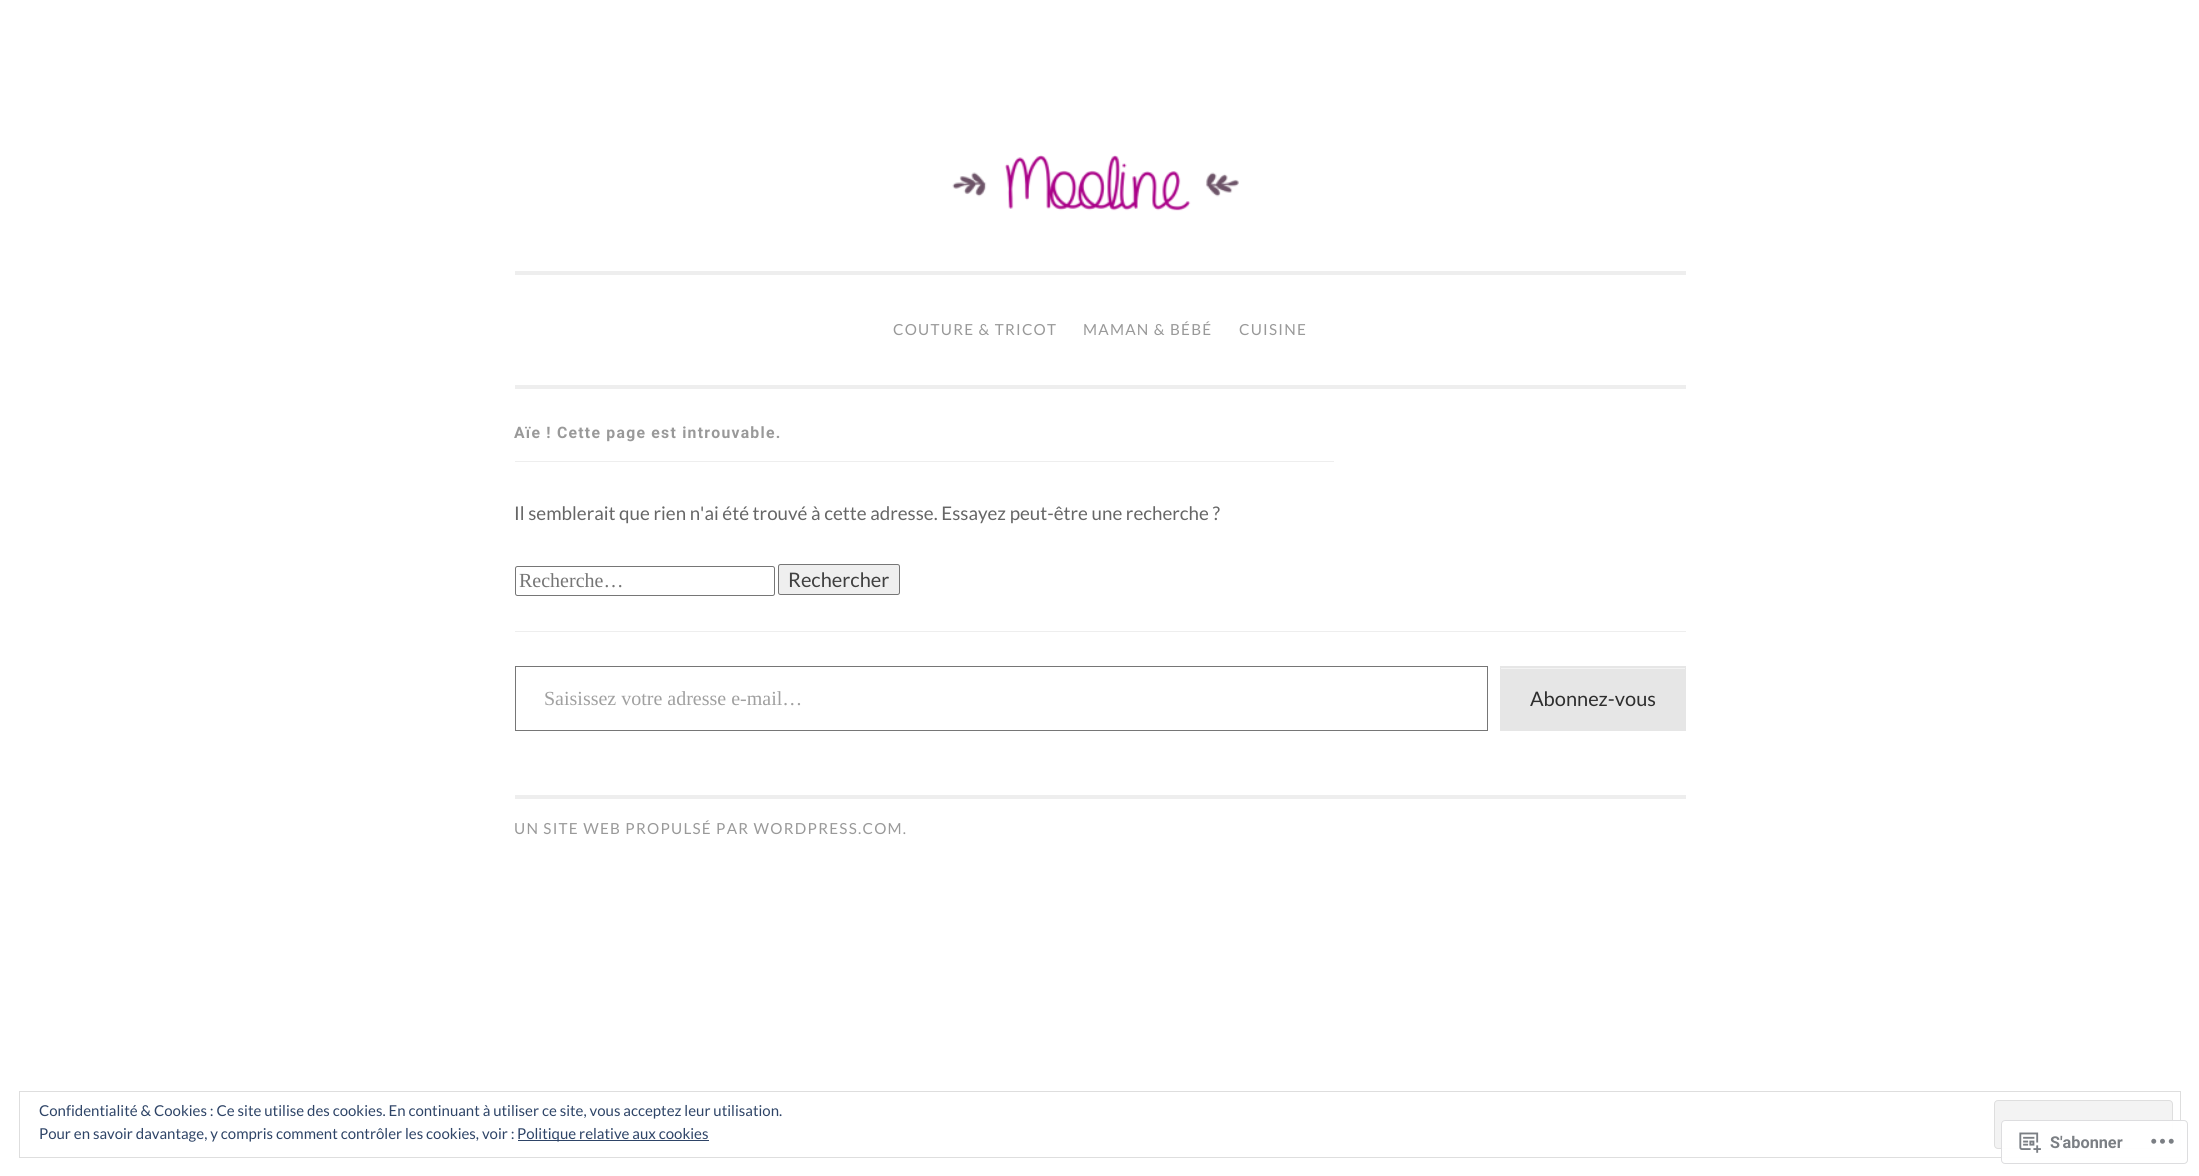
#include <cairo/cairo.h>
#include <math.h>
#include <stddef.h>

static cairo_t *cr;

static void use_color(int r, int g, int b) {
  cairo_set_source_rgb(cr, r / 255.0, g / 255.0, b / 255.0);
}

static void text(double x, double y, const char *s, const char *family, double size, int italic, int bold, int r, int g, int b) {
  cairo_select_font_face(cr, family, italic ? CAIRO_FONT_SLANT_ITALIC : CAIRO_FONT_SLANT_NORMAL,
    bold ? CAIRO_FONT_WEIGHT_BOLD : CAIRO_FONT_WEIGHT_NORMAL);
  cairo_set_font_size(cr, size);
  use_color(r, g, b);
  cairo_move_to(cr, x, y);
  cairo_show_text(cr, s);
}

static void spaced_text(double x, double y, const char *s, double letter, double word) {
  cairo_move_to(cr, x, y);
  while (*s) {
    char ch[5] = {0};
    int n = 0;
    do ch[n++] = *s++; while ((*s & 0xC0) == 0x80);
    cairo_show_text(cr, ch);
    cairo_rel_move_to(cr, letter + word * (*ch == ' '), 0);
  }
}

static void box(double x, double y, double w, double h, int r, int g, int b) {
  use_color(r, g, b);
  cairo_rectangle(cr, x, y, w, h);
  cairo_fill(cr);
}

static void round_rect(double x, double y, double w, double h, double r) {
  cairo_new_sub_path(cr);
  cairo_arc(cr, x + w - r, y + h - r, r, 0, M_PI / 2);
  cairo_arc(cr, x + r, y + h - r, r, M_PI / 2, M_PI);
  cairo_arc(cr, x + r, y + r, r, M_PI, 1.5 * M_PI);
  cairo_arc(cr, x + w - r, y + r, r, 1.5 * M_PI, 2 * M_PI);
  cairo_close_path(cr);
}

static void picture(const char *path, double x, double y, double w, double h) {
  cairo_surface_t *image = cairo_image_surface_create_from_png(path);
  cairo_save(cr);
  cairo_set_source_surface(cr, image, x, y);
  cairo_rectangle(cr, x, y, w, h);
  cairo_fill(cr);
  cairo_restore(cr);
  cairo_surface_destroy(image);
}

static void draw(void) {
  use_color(255, 255, 255);
  cairo_paint(cr);
  box(515, 385, 1171, 4, 238, 238, 238);
  picture("img_01.png", 952, 155, 287, 56);
  box(515, 271, 1171, 4, 238, 238, 238);
  box(515, 461, 819, 1, 238, 238, 238);
  round_rect(515.5, 566.5, 259, 29, 2);
  use_color(118, 118, 118);
  cairo_set_line_width(cr, 1);
  cairo_stroke(cr);
  use_color(239, 239, 239);
  round_rect(778.5, 564.5, 121, 30, 2);
  cairo_fill_preserve(cr);
  use_color(118, 118, 118);
  cairo_stroke(cr);
  box(515, 631, 1171, 1, 238, 238, 238);
  cairo_rectangle(cr, 515.5, 666.5, 972, 64);
  use_color(118, 118, 118);
  cairo_stroke(cr);
  box(1500, 666, 186, 65, 230, 230, 230);
  box(1501, 668, 184, 1, 243, 243, 243);
  box(515, 795, 1171, 4, 238, 238, 238);
  cairo_rectangle(cr, 19.5, 1091.5, 2161, 66);
  use_color(222, 222, 222);
  cairo_stroke(cr);
  use_color(243, 243, 243);
  round_rect(1994.5, 1100.5, 178, 48, 3.5);
  cairo_fill_preserve(cr);
  use_color(222, 222, 222);
  cairo_stroke(cr);
  box(518, 1140, 191, 1, 46, 68, 103);
  cairo_set_source_rgba(cr, 1, 1, 1, 0.98);
  round_rect(2001, 1120, 187, 44, 4);
  cairo_fill(cr);
  round_rect(2001.5, 1120.5, 186, 43, 3.5);
  cairo_set_source_rgba(cr, 0.863, 0.863, 0.871, 0.98);
  cairo_stroke(cr);
  picture("img_02.png", 2019, 1132, 22, 21);
  picture("img_03.png", 2151, 1138, 23, 6);
  cairo_select_font_face(cr, "Lato", CAIRO_FONT_SLANT_NORMAL, CAIRO_FONT_WEIGHT_NORMAL);
  cairo_set_font_size(cr, 15.25);
  use_color(153, 153, 153);
  spaced_text(893, 335, "COUTURE & TRICOT", 1.25, 0);
  spaced_text(1083, 335, "MAMAN & BÉBÉ", 1.25, 0);
  spaced_text(1239, 335, "CUISINE", 1.25, 0);
  cairo_select_font_face(cr, "Roboto", CAIRO_FONT_SLANT_NORMAL, CAIRO_FONT_WEIGHT_BOLD);
  cairo_set_font_size(cr, 15.75);
  spaced_text(514, 438, "Aïe ! Cette page est introuvable.", 1.25, 0);
  text(514, 520, "Il semblerait que rien n'ai été trouvé à cette adresse. Essayez peut-être une recherche ?", "Lato", 18.75, 0, 0, 102, 102, 102);
  text(519, 587, "Recherche…", "Liberation Serif", 20, 0, 0, 117, 117, 117);
  text(788, 587, "Rechercher", "Lato", 20, 0, 0, 64, 64, 64);
  text(544, 705, "Saisissez votre adresse e-mail…", "Liberation Serif", 20, 0, 0, 160, 160, 160);
  text(1530, 706, "Abonnez-vous", "Lato", 20, 0, 0, 46, 46, 46);
  cairo_set_font_size(cr, 15.25);
  use_color(153, 153, 153);
  spaced_text(514, 834, "UN SITE WEB PROPULSÉ PAR WORDPRESS.COM.", 1.25, 0);
  text(39, 1116, "Confidentialité & Cookies : Ce site utilise des cookies. En continuant à utiliser ce site, vous acceptez leur utilisation.", "Lato", 15, 0, 0, 46, 68, 103);
  text(39, 1139, "Pour en savoir davantage, y compris comment contrôler les cookies, voir :", "Lato", 15, 0, 0, 46, 68, 103);
  text(517, 1139, "Politique relative aux cookies", "Lato", 15, 0, 0, 46, 68, 103);
  text(2050, 1148, "S'abonner", "Roboto", 16.25, 0, 1, 123, 127, 132);
}

int main(void) {
  cairo_surface_t *surface = cairo_image_surface_create(CAIRO_FORMAT_RGB24, 2199, 1176);
  cr = cairo_create(surface);
  cairo_font_options_t *options = cairo_font_options_create();
  cairo_font_options_set_hint_metrics(options, CAIRO_HINT_METRICS_OFF);
  cairo_font_options_set_hint_style(options, CAIRO_HINT_STYLE_NONE);
  cairo_set_font_options(cr, options);
  cairo_set_miter_limit(cr, 4);
  draw();
  cairo_surface_write_to_png(surface, "out.png");
  cairo_font_options_destroy(options);
  cairo_destroy(cr);
  cairo_surface_destroy(surface);
  return 0;
}
